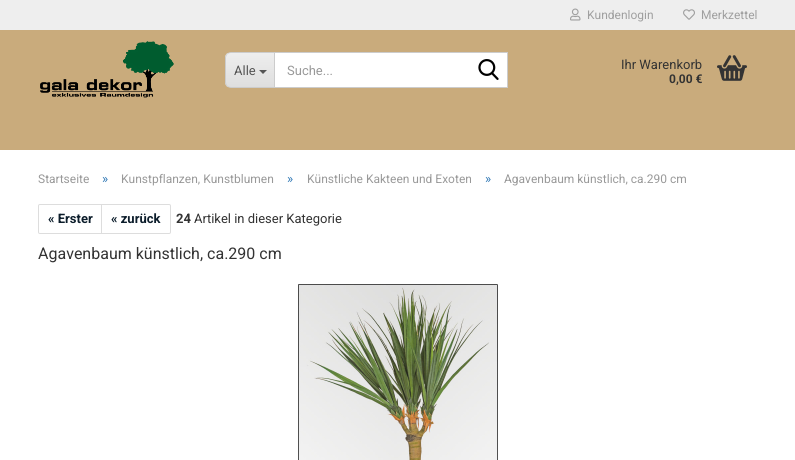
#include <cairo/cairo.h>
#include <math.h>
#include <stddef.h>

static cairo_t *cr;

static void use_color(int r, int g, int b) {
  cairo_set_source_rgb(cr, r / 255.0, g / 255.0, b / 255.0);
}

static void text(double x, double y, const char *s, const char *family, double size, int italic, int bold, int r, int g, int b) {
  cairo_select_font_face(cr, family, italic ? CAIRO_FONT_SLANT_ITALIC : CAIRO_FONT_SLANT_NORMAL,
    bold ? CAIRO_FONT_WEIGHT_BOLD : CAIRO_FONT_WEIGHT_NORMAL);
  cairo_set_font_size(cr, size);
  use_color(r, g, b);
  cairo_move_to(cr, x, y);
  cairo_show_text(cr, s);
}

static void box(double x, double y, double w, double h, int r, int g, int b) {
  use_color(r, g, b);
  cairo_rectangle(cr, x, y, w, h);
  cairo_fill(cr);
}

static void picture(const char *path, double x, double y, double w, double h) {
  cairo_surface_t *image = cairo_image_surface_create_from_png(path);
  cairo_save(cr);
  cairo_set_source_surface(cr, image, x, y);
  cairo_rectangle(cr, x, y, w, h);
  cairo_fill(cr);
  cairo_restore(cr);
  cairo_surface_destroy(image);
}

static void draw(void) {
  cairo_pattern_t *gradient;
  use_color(255, 255, 255);
  cairo_paint(cr);
  box(0, 30, 795, 120, 201, 171, 124);
  box(0, 0, 795, 30, 238, 238, 238);
  picture("img_01.png", 570, 8, 11, 13);
  picture("img_02.png", 683, 9, 12, 11);
  picture("img_03.png", 40, 41, 134, 57);
  cairo_save(cr);
  cairo_new_path(cr);
  cairo_move_to(cr, 231, 52);
  cairo_line_to(cr, 274, 52);
  cairo_line_to(cr, 274, 88);
  cairo_line_to(cr, 231, 88);
  cairo_curve_to(cr, 227.5, 88, 225, 85.5, 225, 82);
  cairo_line_to(cr, 225, 58);
  cairo_curve_to(cr, 225, 54.5, 227.5, 52, 231, 52);
  cairo_close_path(cr);
  cairo_clip(cr);
  gradient = cairo_pattern_create_linear(250, 53, 250, 87);
  cairo_pattern_add_color_stop_rgba(gradient, 0, 0.933, 0.933, 0.933, 1);
  cairo_pattern_add_color_stop_rgba(gradient, 1, 0.871, 0.871, 0.871, 1);
  cairo_set_source(cr, gradient);
  cairo_pattern_destroy(gradient);
  cairo_rectangle(cr, 225, 53, 49, 34);
  cairo_fill(cr);
  cairo_restore(cr);
  use_color(204, 204, 204);
  cairo_set_fill_rule(cr, CAIRO_FILL_RULE_EVEN_ODD);
  cairo_new_path(cr);
  cairo_move_to(cr, 231, 52);
  cairo_line_to(cr, 274, 52);
  cairo_line_to(cr, 274, 88);
  cairo_line_to(cr, 231, 88);
  cairo_curve_to(cr, 228, 88, 225, 85, 225, 82);
  cairo_line_to(cr, 225, 58);
  cairo_curve_to(cr, 225, 55, 228, 52, 231, 52);
  cairo_close_path(cr);
  cairo_move_to(cr, 231, 53);
  cairo_line_to(cr, 274, 53);
  cairo_line_to(cr, 274, 87);
  cairo_line_to(cr, 231, 87);
  cairo_curve_to(cr, 228, 87, 226, 85, 226, 82);
  cairo_line_to(cr, 226, 58);
  cairo_curve_to(cr, 226, 55, 228, 53, 231, 53);
  cairo_close_path(cr);
  cairo_fill(cr);
  use_color(85, 85, 85);
  cairo_set_fill_rule(cr, CAIRO_FILL_RULE_WINDING);
  cairo_new_path(cr);
  cairo_move_to(cr, 259, 70);
  cairo_line_to(cr, 267, 70);
  cairo_line_to(cr, 263, 74);
  cairo_close_path(cr);
  cairo_fill(cr);
  use_color(255, 255, 255);
  cairo_rectangle(cr, 274.5, 52.5, 233, 35);
  cairo_fill_preserve(cr);
  use_color(204, 204, 204);
  cairo_set_line_width(cr, 1);
  cairo_stroke(cr);
  picture("img_04.png", 478, 59, 21, 21);
  picture("img_05.png", 717, 55, 30, 26);
  cairo_new_path(cr);
  cairo_move_to(cr, 40, 204.5);
  cairo_line_to(cr, 101.5, 204.5);
  cairo_line_to(cr, 101.5, 233.5);
  cairo_line_to(cr, 40, 233.5);
  cairo_curve_to(cr, 39, 233.5, 38.5, 233, 38.5, 232);
  cairo_line_to(cr, 38.5, 206);
  cairo_curve_to(cr, 38.5, 205, 39, 204.5, 40, 204.5);
  cairo_close_path(cr);
  use_color(221, 221, 221);
  cairo_stroke(cr);
  use_color(255, 255, 255);
  cairo_new_path(cr);
  cairo_move_to(cr, 101.5, 204.5);
  cairo_line_to(cr, 169, 204.5);
  cairo_curve_to(cr, 170, 204.5, 170.5, 205, 170.5, 206);
  cairo_line_to(cr, 170.5, 232);
  cairo_curve_to(cr, 170.5, 233, 170, 233.5, 169, 233.5);
  cairo_line_to(cr, 101.5, 233.5);
  cairo_close_path(cr);
  cairo_fill_preserve(cr);
  use_color(221, 221, 221);
  cairo_stroke(cr);
  picture("img_06.png", 298, 284, 200, 176);
  text(587, 19, "Kundenlogin", "Roboto", 12, 0, 0, 159, 159, 159);
  text(701, 19, "Merkzettel", "Roboto", 12, 0, 0, 159, 159, 159);
  text(234, 75, "Alle", "Roboto", 13, 0, 0, 85, 85, 85);
  text(287, 75, "Suche...", "Roboto", 13, 0, 0, 153, 153, 153);
  text(621, 69, "Ihr Warenkorb", "Roboto", 13, 0, 0, 51, 51, 51);
  text(669, 83, "0,00 €", "Roboto", 12, 0, 1, 51, 51, 51);
  text(38, 183, "Startseite", "Roboto", 12, 0, 0, 153, 153, 153);
  text(102, 183, "»", "Roboto", 13, 0, 0, 51, 122, 183);
  text(121, 183, "Kunstpflanzen, Kunstblumen", "Roboto", 12, 0, 0, 153, 153, 153);
  text(287, 183, "»", "Roboto", 13, 0, 0, 51, 122, 183);
  text(307, 183, "Künstliche Kakteen und Exoten", "Roboto", 12, 0, 0, 153, 153, 153);
  text(485, 183, "»", "Roboto", 13, 0, 0, 51, 122, 183);
  text(504, 183, "Agavenbaum künstlich, ca.290 cm", "Roboto", 12, 0, 0, 153, 153, 153);
  text(48, 223, "« Erster", "Roboto", 13, 0, 1, 12, 29, 43);
  text(111, 223, "« zurück", "Roboto", 13, 0, 1, 12, 29, 43);
  text(176, 223, "24", "Roboto", 13, 0, 1, 51, 51, 51);
  text(194, 223, "Artikel in dieser Kategorie", "Roboto", 13, 0, 0, 51, 51, 51);
  text(38, 259, "Agavenbaum künstlich, ca.290 cm", "Roboto", 16, 0, 0, 51, 51, 51);
}

int main(void) {
  cairo_surface_t *surface = cairo_image_surface_create(CAIRO_FORMAT_RGB24, 795, 460);
  cr = cairo_create(surface);
  cairo_font_options_t *options = cairo_font_options_create();
  cairo_font_options_set_hint_metrics(options, CAIRO_HINT_METRICS_OFF);
  cairo_font_options_set_hint_style(options, CAIRO_HINT_STYLE_NONE);
  cairo_set_font_options(cr, options);
  cairo_set_miter_limit(cr, 4);
  draw();
  cairo_surface_write_to_png(surface, "out.png");
  cairo_font_options_destroy(options);
  cairo_destroy(cr);
  cairo_surface_destroy(surface);
  return 0;
}
